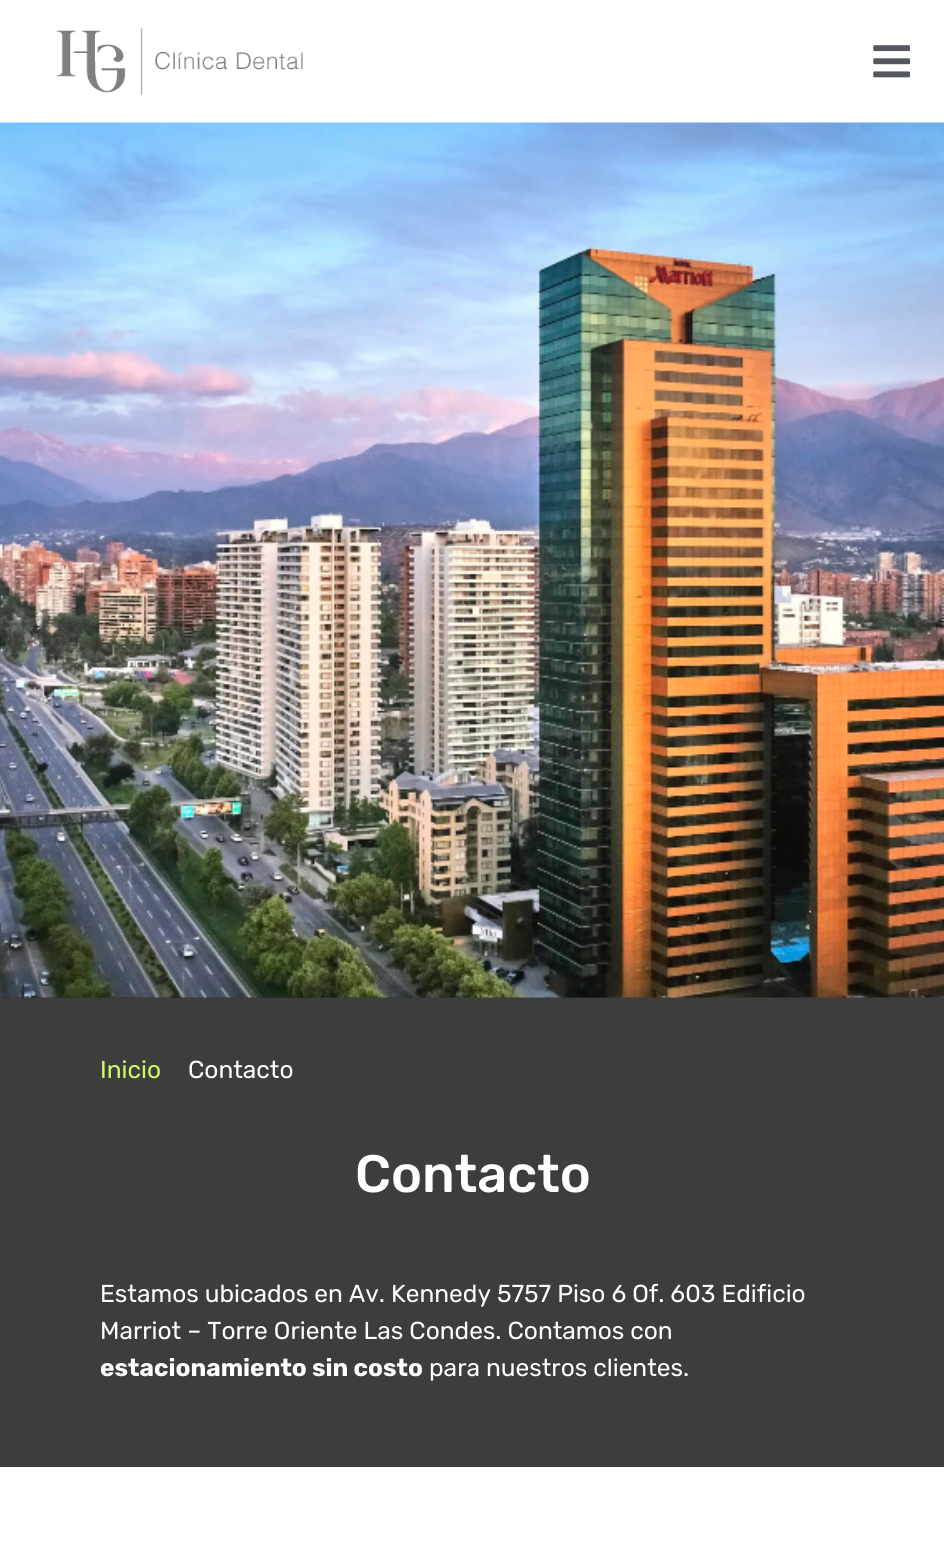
#include <cairo/cairo.h>
#include <math.h>
#include <stddef.h>

static cairo_t *cr;

static void use_color(int r, int g, int b) {
  cairo_set_source_rgb(cr, r / 255.0, g / 255.0, b / 255.0);
}

static void text(double x, double y, const char *s, const char *family, double size, int italic, int bold, int r, int g, int b) {
  cairo_select_font_face(cr, family, italic ? CAIRO_FONT_SLANT_ITALIC : CAIRO_FONT_SLANT_NORMAL,
    bold ? CAIRO_FONT_WEIGHT_BOLD : CAIRO_FONT_WEIGHT_NORMAL);
  cairo_set_font_size(cr, size);
  use_color(r, g, b);
  cairo_move_to(cr, x, y);
  cairo_show_text(cr, s);
}

static void box(double x, double y, double w, double h, int r, int g, int b) {
  use_color(r, g, b);
  cairo_rectangle(cr, x, y, w, h);
  cairo_fill(cr);
}

static void picture(const char *path, double x, double y, double w, double h) {
  cairo_surface_t *image = cairo_image_surface_create_from_png(path);
  cairo_save(cr);
  cairo_set_source_surface(cr, image, x, y);
  cairo_rectangle(cr, x, y, w, h);
  cairo_fill(cr);
  cairo_restore(cr);
  cairo_surface_destroy(image);
}

static void draw(void) {
  cairo_pattern_t *gradient;
  use_color(255, 255, 255);
  cairo_paint(cr);
  picture("img_01.png", 56, 27, 247, 68);
  picture("img_02.png", 873, 45, 37, 33);
  box(0, 998, 944, 469, 61, 61, 61);
  gradient = cairo_pattern_create_linear(0, 560, 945, 560);
  cairo_pattern_add_color_stop_rgba(gradient, 0, 0.188, 0.188, 0.188, 1);
  cairo_pattern_add_color_stop_rgba(gradient, 1, 0.255, 0.255, 0.255, 1);
  cairo_set_source(cr, gradient);
  cairo_pattern_destroy(gradient);
  cairo_rectangle(cr, 0, 997, 944, 1);
  cairo_fill(cr);
  picture("img_03.png", 0, 122, 944, 876);
  text(100, 1078, "Inicio", "Rubik", 24.5, 0, 0, 206, 250, 106);
  text(188, 1078, "Contacto", "Rubik", 24.5, 0, 0, 255, 255, 255);
  text(355, 1192, "Contacto", "Rubik Medium", 52.5, 0, 0, 255, 255, 255);
  text(100, 1302, "Estamos ubicados en Av. Kennedy 5757 Piso 6 Of. 603 Edificio", "Rubik", 24.5, 0, 0, 255, 255, 255);
  text(100, 1339, "Marriot – Torre Oriente Las Condes. Contamos con", "Rubik", 24.5, 0, 0, 255, 255, 255);
  text(100, 1376, "estacionamiento sin costo", "Rubik", 24.5, 0, 1, 255, 255, 255);
  text(429, 1376, "para nuestros clientes.", "Rubik", 24.5, 0, 0, 255, 255, 255);
}

int main(void) {
  cairo_surface_t *surface = cairo_image_surface_create(CAIRO_FORMAT_RGB24, 944, 1567);
  cr = cairo_create(surface);
  cairo_font_options_t *options = cairo_font_options_create();
  cairo_font_options_set_hint_metrics(options, CAIRO_HINT_METRICS_OFF);
  cairo_font_options_set_hint_style(options, CAIRO_HINT_STYLE_NONE);
  cairo_set_font_options(cr, options);
  cairo_set_miter_limit(cr, 4);
  draw();
  cairo_surface_write_to_png(surface, "out.png");
  cairo_font_options_destroy(options);
  cairo_destroy(cr);
  cairo_surface_destroy(surface);
  return 0;
}
